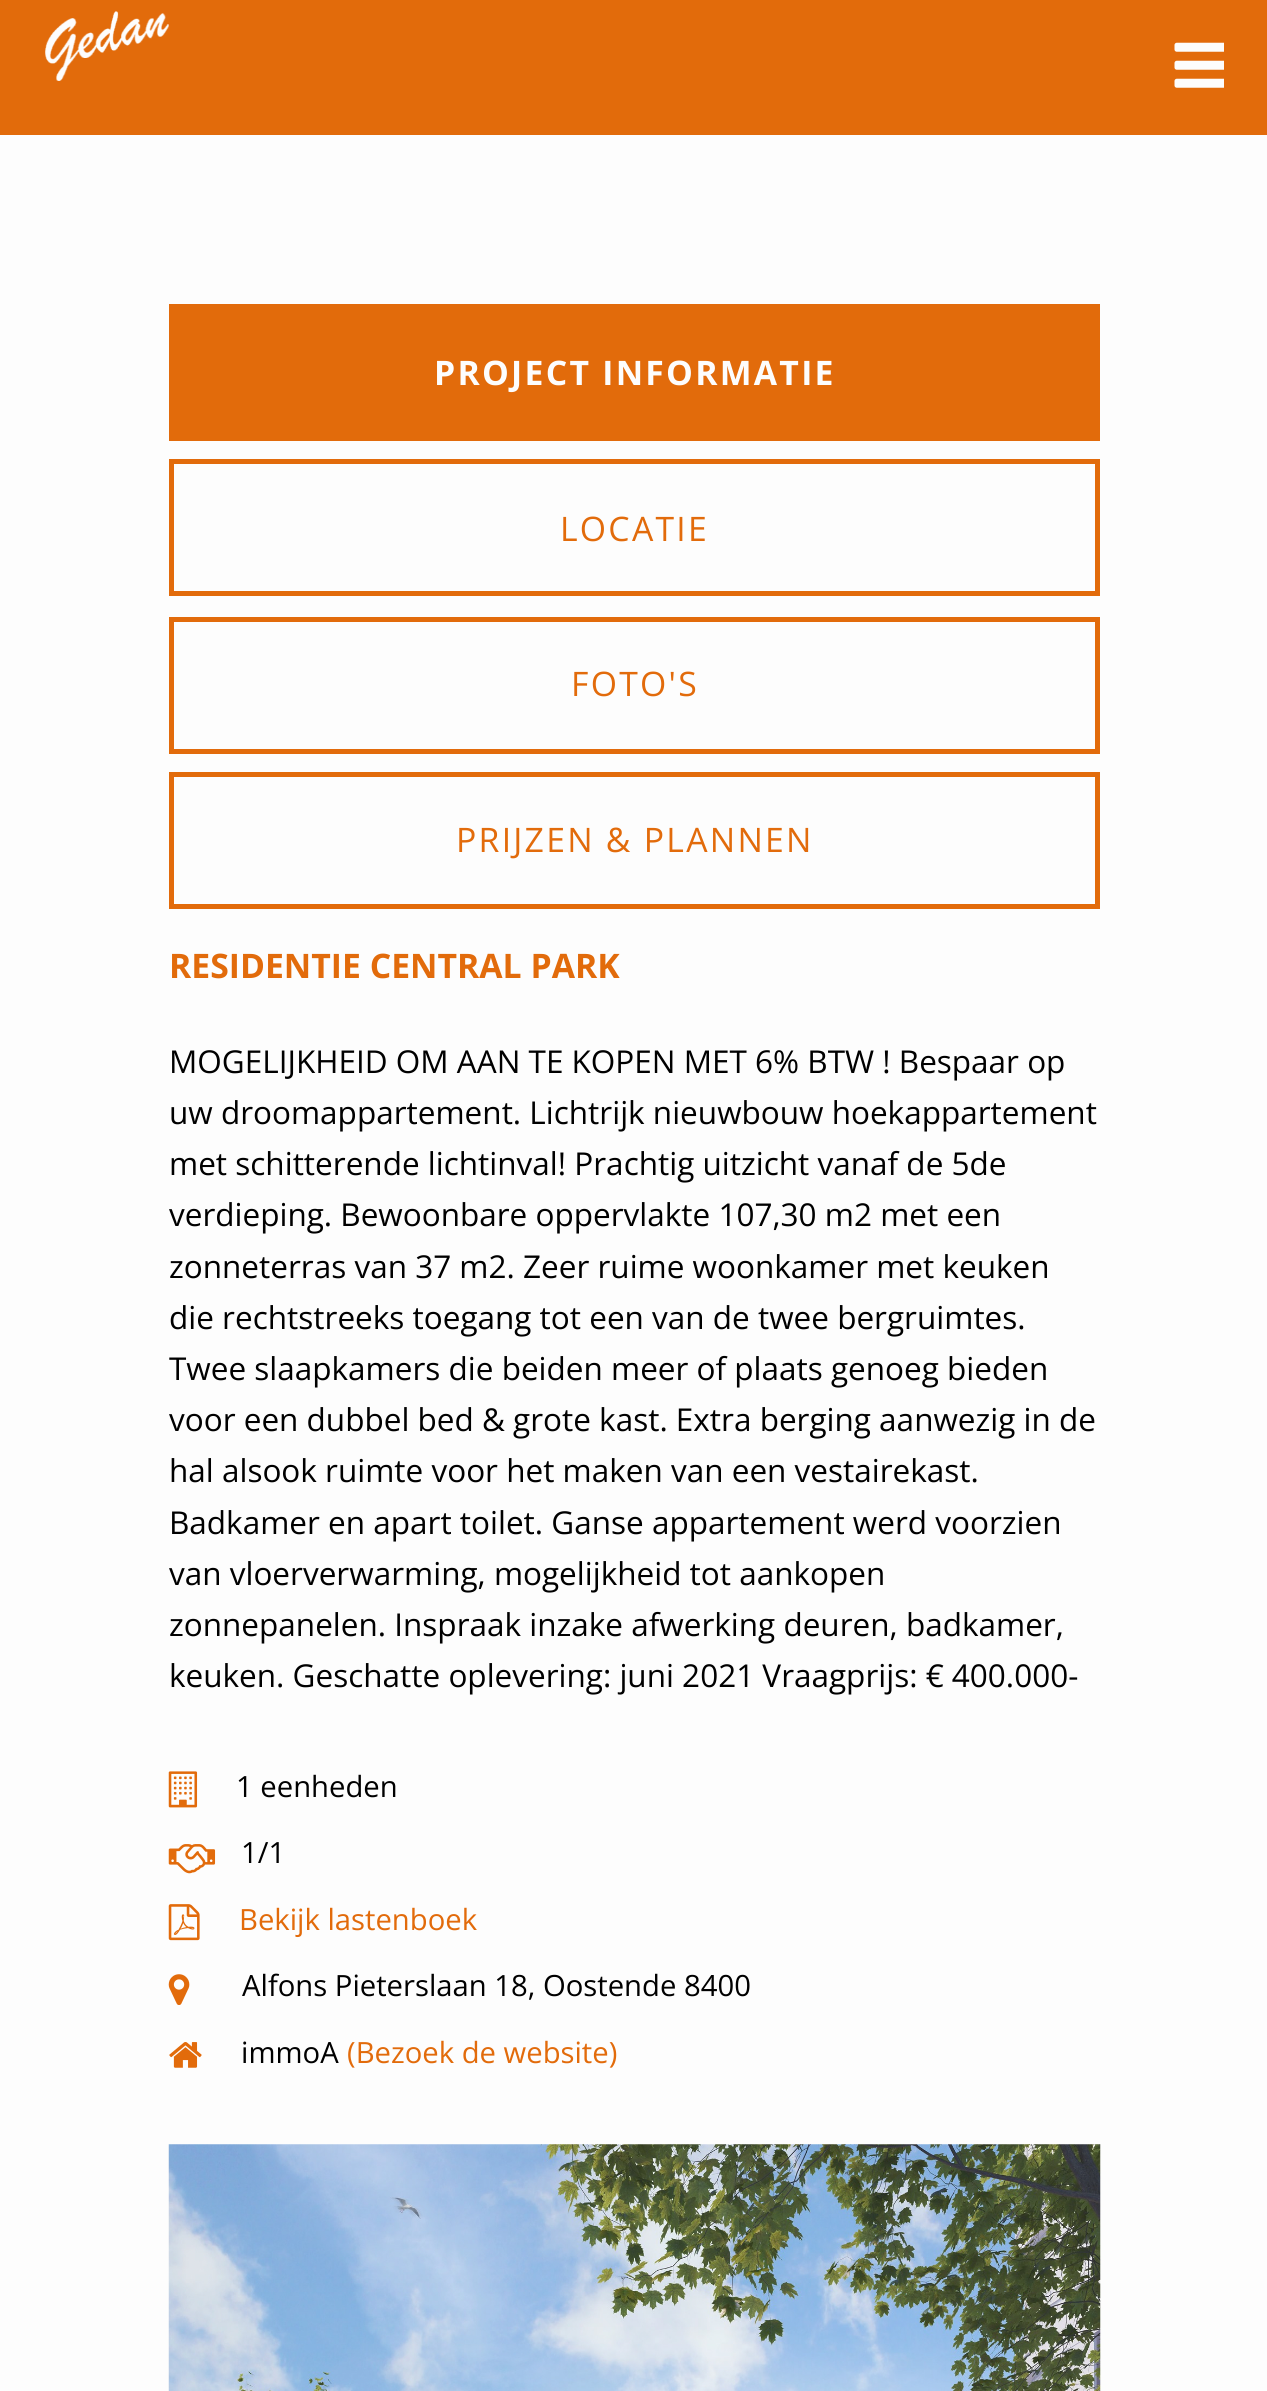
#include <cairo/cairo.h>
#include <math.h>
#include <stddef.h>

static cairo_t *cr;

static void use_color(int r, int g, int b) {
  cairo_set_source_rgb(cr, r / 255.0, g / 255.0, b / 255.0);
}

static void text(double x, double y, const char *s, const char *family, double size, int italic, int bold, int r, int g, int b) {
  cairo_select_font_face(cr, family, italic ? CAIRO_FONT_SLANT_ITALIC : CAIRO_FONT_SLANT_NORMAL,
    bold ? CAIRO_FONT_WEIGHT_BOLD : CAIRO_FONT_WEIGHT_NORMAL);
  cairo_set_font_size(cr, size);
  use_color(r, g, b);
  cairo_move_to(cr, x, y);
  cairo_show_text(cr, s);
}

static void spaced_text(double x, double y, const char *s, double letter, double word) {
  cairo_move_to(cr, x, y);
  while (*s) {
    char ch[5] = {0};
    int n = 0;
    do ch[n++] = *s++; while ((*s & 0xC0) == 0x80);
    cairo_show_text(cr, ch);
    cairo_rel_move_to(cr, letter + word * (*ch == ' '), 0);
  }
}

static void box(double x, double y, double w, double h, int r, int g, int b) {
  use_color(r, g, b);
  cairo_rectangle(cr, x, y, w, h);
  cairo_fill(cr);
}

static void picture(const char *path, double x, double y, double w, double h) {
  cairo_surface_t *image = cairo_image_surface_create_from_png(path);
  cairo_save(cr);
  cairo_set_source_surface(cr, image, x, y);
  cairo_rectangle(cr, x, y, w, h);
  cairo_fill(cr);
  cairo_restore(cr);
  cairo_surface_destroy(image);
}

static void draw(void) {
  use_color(253, 253, 253);
  cairo_paint(cr);
  box(0, 0, 1267, 135, 226, 107, 11);
  picture("img_01.png", 45, 11, 124, 70);
  picture("img_02.png", 1174, 42, 50, 46);
  box(169, 304, 931, 137, 226, 107, 11);
  cairo_rectangle(cr, 171.5, 461.5, 926, 132);
  cairo_set_line_width(cr, 5);
  cairo_stroke(cr);
  cairo_rectangle(cr, 171.5, 619.5, 926, 132);
  cairo_stroke(cr);
  cairo_rectangle(cr, 171.5, 774.5, 926, 132);
  cairo_stroke(cr);
  picture("img_03.png", 168, 1771, 30, 37);
  picture("img_04.png", 168, 1844, 48, 30);
  picture("img_05.png", 168, 1904, 32, 37);
  picture("img_06.png", 168, 1974, 22, 31);
  picture("img_07.png", 169, 2042, 33, 26);
  picture("img_08.png", 168, 2144, 933, 247);
  cairo_select_font_face(cr, "Open Sans", CAIRO_FONT_SLANT_NORMAL, CAIRO_FONT_WEIGHT_BOLD);
  cairo_set_font_size(cr, 33.75);
  use_color(253, 253, 253);
  spaced_text(434, 385, "PROJECT INFORMATIE", 2.25, 0);
  cairo_select_font_face(cr, "Open Sans", CAIRO_FONT_SLANT_NORMAL, CAIRO_FONT_WEIGHT_NORMAL);
  use_color(226, 107, 11);
  spaced_text(560, 541, "LOCATIE", 2.25, 0);
  spaced_text(571, 696, "FOTO'S", 2.25, 0);
  spaced_text(456, 852, "PRIJZEN & PLANNEN", 2.25, 0);
  text(169, 978, "RESIDENTIE CENTRAL PARK", "Open Sans", 33.75, 0, 1, 226, 107, 11);
  text(169, 1073, "MOGELIJKHEID OM AAN TE KOPEN MET 6% BTW ! Bespaar op", "Open Sans", 31.5, 0, 0, 0, 0, 0);
  text(169, 1124, "uw droomappartement. Lichtrijk nieuwbouw hoekappartement", "Open Sans", 31.5, 0, 0, 0, 0, 0);
  text(169, 1175, "met schitterende lichtinval! Prachtig uitzicht vanaf de 5de", "Open Sans", 31.5, 0, 0, 0, 0, 0);
  text(169, 1226, "verdieping. Bewoonbare oppervlakte 107,30 m2 met een", "Open Sans", 31.5, 0, 0, 0, 0, 0);
  text(169, 1278, "zonneterras van 37 m2. Zeer ruime woonkamer met keuken", "Open Sans", 31.5, 0, 0, 0, 0, 0);
  text(169, 1329, "die rechtstreeks toegang tot een van de twee bergruimtes.", "Open Sans", 31.5, 0, 0, 0, 0, 0);
  text(169, 1380, "Twee slaapkamers die beiden meer of plaats genoeg bieden", "Open Sans", 31.5, 0, 0, 0, 0, 0);
  text(169, 1431, "voor een dubbel bed & grote kast. Extra berging aanwezig in de", "Open Sans", 31.5, 0, 0, 0, 0, 0);
  text(169, 1482, "hal alsook ruimte voor het maken van een vestairekast.", "Open Sans", 31.5, 0, 0, 0, 0, 0);
  text(169, 1534, "Badkamer en apart toilet. Ganse appartement werd voorzien", "Open Sans", 31.5, 0, 0, 0, 0, 0);
  text(169, 1585, "van vloerverwarming, mogelijkheid tot aankopen", "Open Sans", 31.5, 0, 0, 0, 0, 0);
  text(169, 1636, "zonnepanelen. Inspraak inzake afwerking deuren, badkamer,", "Open Sans", 31.5, 0, 0, 0, 0, 0);
  text(169, 1687, "keuken. Geschatte oplevering: juni 2021 Vraagprijs: € 400.000-", "Open Sans", 31.5, 0, 0, 0, 0, 0);
  text(236, 1797, "1 eenheden", "Open Sans", 29.25, 0, 0, 0, 0, 0);
  text(241, 1863, "1/1", "Open Sans", 29.25, 0, 0, 0, 0, 0);
  text(239, 1930, "Bekijk lastenboek", "Open Sans", 29.25, 0, 0, 226, 107, 11);
  text(242, 1996, "Alfons Pieterslaan 18, Oostende 8400", "Open Sans", 29.25, 0, 0, 0, 0, 0);
  text(241, 2063, "immoA", "Open Sans", 29.25, 0, 0, 0, 0, 0);
  text(347, 2063, "(Bezoek de website)", "Open Sans", 29.25, 0, 0, 226, 107, 11);
}

int main(void) {
  cairo_surface_t *surface = cairo_image_surface_create(CAIRO_FORMAT_RGB24, 1267, 2391);
  cr = cairo_create(surface);
  cairo_font_options_t *options = cairo_font_options_create();
  cairo_font_options_set_hint_metrics(options, CAIRO_HINT_METRICS_OFF);
  cairo_font_options_set_hint_style(options, CAIRO_HINT_STYLE_NONE);
  cairo_set_font_options(cr, options);
  cairo_set_miter_limit(cr, 4);
  draw();
  cairo_surface_write_to_png(surface, "out.png");
  cairo_font_options_destroy(options);
  cairo_destroy(cr);
  cairo_surface_destroy(surface);
  return 0;
}
